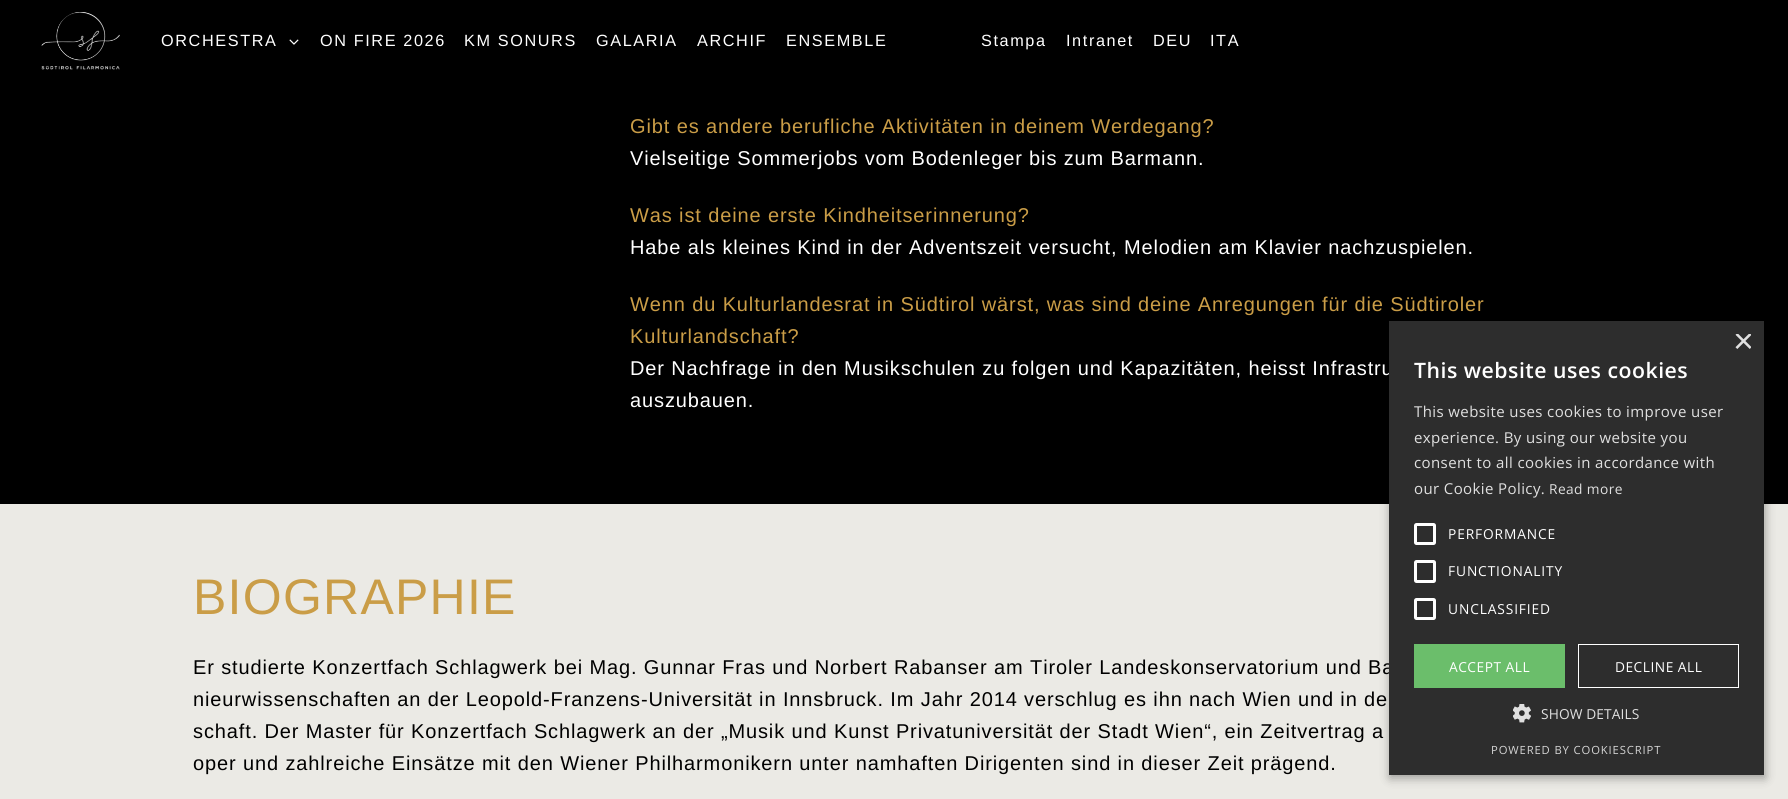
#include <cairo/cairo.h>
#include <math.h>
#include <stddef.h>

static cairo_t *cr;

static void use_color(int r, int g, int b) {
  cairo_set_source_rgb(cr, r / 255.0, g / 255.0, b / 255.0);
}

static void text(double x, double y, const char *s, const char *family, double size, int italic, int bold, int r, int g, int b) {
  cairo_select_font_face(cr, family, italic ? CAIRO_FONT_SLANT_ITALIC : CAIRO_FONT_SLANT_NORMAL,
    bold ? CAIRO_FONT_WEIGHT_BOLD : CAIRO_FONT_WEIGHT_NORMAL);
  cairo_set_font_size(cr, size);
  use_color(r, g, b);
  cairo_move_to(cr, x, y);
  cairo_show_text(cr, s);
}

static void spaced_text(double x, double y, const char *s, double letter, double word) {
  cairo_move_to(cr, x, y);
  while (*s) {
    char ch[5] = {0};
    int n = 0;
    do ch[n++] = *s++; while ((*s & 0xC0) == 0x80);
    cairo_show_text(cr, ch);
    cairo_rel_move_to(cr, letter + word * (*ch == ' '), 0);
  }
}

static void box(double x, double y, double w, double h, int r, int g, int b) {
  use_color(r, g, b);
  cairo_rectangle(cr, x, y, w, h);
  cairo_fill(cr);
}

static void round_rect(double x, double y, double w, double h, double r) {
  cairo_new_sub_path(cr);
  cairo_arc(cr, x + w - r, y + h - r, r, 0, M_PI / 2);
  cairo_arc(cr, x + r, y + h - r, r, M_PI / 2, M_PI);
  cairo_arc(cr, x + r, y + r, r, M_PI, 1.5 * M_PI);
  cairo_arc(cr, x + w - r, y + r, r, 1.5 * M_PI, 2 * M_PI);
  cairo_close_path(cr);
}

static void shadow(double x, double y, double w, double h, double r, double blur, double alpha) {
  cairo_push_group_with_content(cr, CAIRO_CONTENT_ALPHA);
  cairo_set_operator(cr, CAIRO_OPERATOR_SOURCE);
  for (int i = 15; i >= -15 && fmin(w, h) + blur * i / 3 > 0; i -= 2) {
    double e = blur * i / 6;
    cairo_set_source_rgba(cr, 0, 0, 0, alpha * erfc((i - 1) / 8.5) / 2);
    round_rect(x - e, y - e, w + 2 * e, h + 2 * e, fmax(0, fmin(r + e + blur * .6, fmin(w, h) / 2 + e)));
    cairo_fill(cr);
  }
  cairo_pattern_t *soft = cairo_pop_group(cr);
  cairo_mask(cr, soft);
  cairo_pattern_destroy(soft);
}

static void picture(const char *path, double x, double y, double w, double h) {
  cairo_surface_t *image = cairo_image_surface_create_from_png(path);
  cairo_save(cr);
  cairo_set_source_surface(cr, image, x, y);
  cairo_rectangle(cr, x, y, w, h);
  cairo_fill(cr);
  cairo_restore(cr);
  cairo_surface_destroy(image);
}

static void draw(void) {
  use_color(0, 0, 0);
  cairo_paint(cr);
  picture("img_01.png", 41, 12, 79, 58);
  picture("img_02.png", 289, 39, 10, 6);
  box(0, 504, 1788, 295, 235, 234, 229);
  use_color(0, 0, 0);
  shadow(1390, 324, 375, 454, 0, 5, 0.35);
  cairo_select_font_face(cr, "Liberation Sans", CAIRO_FONT_SLANT_NORMAL, CAIRO_FONT_WEIGHT_NORMAL);
  cairo_set_font_size(cr, 16.25);
  use_color(255, 255, 255);
  spaced_text(161, 46, "ORCHESTRA", 1.6, 0);
  spaced_text(320, 46, "ON FIRE 2026", 1.6, 0);
  spaced_text(464, 46, "KM SONURS", 1.6, 0);
  spaced_text(596, 46, "GALARIA", 1.6, 0);
  spaced_text(697, 46, "ARCHIF", 1.6, 0);
  spaced_text(786, 46, "ENSEMBLE", 1.6, 0);
  spaced_text(981, 46, "Stampa", 1.6, 0);
  spaced_text(1066, 46, "Intranet", 1.6, 0);
  spaced_text(1153, 46, "DEU", 1.6, 0);
  spaced_text(1210, 46, "ITA", 1.6, 0);
  cairo_set_font_size(cr, 20);
  use_color(202, 157, 71);
  spaced_text(630, 133, "Gibt es andere berufliche Aktivitäten in deinem Werdegang?", 0.88, 0);
  use_color(255, 255, 255);
  spaced_text(630, 165, "Vielseitige Sommerjobs vom Bodenleger bis zum Barmann.", 0.88, 0);
  use_color(202, 157, 71);
  spaced_text(630, 222, "Was ist deine erste Kindheitserinnerung?", 0.88, 0);
  use_color(255, 255, 255);
  spaced_text(630, 254, "Habe als kleines Kind in der Adventszeit versucht, Melodien am Klavier nachzuspielen.", 0.88, 0);
  use_color(202, 157, 71);
  spaced_text(630, 311, "Wenn du Kulturlandesrat in Südtirol wärst, was sind deine Anregungen für die Südtiroler", 0.88, 0);
  spaced_text(630, 343, "Kulturlandschaft?", 0.88, 0);
  use_color(255, 255, 255);
  spaced_text(630, 375, "Der Nachfrage in den Musikschulen zu folgen und Kapazitäten, heisst Infrastru", 0.88, 0);
  spaced_text(630, 407, "auszubauen.", 0.88, 0);
  cairo_set_font_size(cr, 50);
  use_color(202, 157, 71);
  spaced_text(193, 614, "BIOGRAPHIE", 1.25, 0);
  cairo_set_font_size(cr, 20);
  use_color(0, 0, 0);
  spaced_text(193, 674, "Er studierte Konzertfach Schlagwerk bei Mag. Gunnar Fras und Norbert Rabanser am Tiroler Landeskonservatorium und Ba", 0.88, 0);
  spaced_text(193, 706, "nieurwissenschaften an der Leopold-Franzens-Universität in Innsbruck. Im Jahr 2014 verschlug es ihn nach Wien und in de", 0.88, 0);
  spaced_text(193, 738, "schaft. Der Master für Konzertfach Schlagwerk an der „Musik und Kunst Privatuniversität der Stadt Wien“, ein Zeitvertrag a", 0.88, 0);
  spaced_text(193, 770, "oper und zahlreiche Einsätze mit den Wiener Philharmonikern unter namhaften Dirigenten sind in dieser Zeit prägend.", 0.88, 0);
  box(1389, 321, 375, 454, 45, 45, 45);
  cairo_save(cr);
  cairo_rectangle(cr, 1733, 334, 18, 19);
  cairo_clip(cr);
  text(1733, 353, "×", "Liberation Sans", 36, 0, 0, 224, 224, 224);
  cairo_restore(cr);
  cairo_select_font_face(cr, "Open Sans SemiBold", CAIRO_FONT_SLANT_NORMAL, CAIRO_FONT_WEIGHT_NORMAL);
  cairo_set_font_size(cr, 21.25);
  use_color(255, 255, 255);
  spaced_text(1414, 378, "This website uses cookies", 0.5, 0);
  cairo_select_font_face(cr, "Open Sans", CAIRO_FONT_SLANT_NORMAL, CAIRO_FONT_WEIGHT_NORMAL);
  cairo_set_font_size(cr, 15);
  use_color(224, 224, 224);
  spaced_text(1414, 417, "This website uses cookies to improve user", 0.4, 0);
  spaced_text(1414, 443, "experience. By using our website you", 0.4, 0);
  spaced_text(1414, 468, "consent to all cookies in accordance with", 0.4, 0);
  spaced_text(1414, 494, "our Cookie Policy.", 0.4, 0);
  cairo_set_font_size(cr, 13.75);
  spaced_text(1549, 494, "Read more", 0.4, 0);
  round_rect(1415.5, 524.5, 19, 19, 1);
  use_color(255, 255, 255);
  cairo_set_line_width(cr, 3);
  cairo_stroke(cr);
  spaced_text(1448, 539, "PERFORMANCE", 0.88, 0);
  round_rect(1415.5, 561.5, 19, 20, 1);
  cairo_stroke(cr);
  spaced_text(1448, 576, "FUNCTIONALITY", 0.88, 0);
  round_rect(1415.5, 599.5, 19, 19, 1);
  cairo_stroke(cr);
  spaced_text(1448, 614, "UNCLASSIFIED", 0.88, 0);
  box(1414, 644, 151, 44, 107, 190, 107);
  use_color(255, 255, 255);
  spaced_text(1449, 672, "ACCEPT ALL", 0.5, 0);
  cairo_rectangle(cr, 1578.5, 644.5, 160, 43);
  cairo_set_line_width(cr, 1);
  cairo_stroke(cr);
  spaced_text(1615, 672, "DECLINE ALL", 0.5, 0);
  picture("img_03.png", 1513, 704, 18, 19);
  use_color(224, 224, 224);
  spaced_text(1541, 719, "SHOW DETAILS", 0.1, 0);
  cairo_set_font_size(cr, 11.25);
  use_color(213, 213, 213);
  spaced_text(1491, 754, "POWERED BY COOKIESCRIPT", 0.88, 0);
}

int main(void) {
  cairo_surface_t *surface = cairo_image_surface_create(CAIRO_FORMAT_RGB24, 1788, 799);
  cr = cairo_create(surface);
  cairo_font_options_t *options = cairo_font_options_create();
  cairo_font_options_set_hint_metrics(options, CAIRO_HINT_METRICS_OFF);
  cairo_font_options_set_hint_style(options, CAIRO_HINT_STYLE_NONE);
  cairo_set_font_options(cr, options);
  cairo_set_miter_limit(cr, 4);
  draw();
  cairo_surface_write_to_png(surface, "out.png");
  cairo_font_options_destroy(options);
  cairo_destroy(cr);
  cairo_surface_destroy(surface);
  return 0;
}
